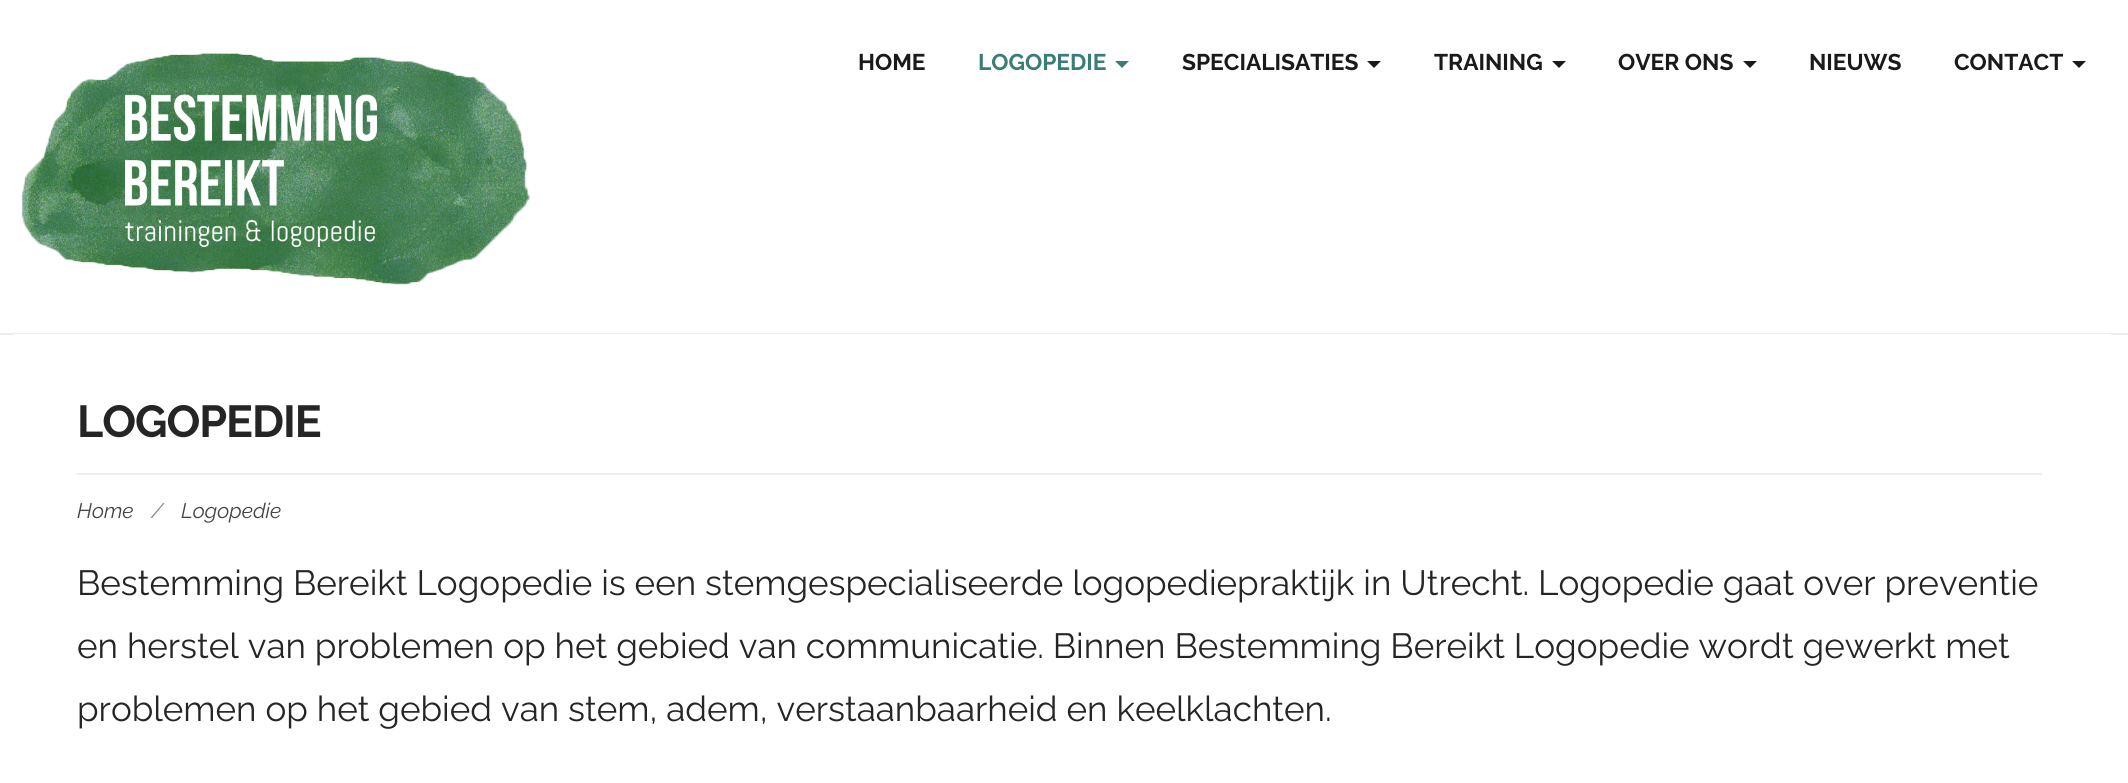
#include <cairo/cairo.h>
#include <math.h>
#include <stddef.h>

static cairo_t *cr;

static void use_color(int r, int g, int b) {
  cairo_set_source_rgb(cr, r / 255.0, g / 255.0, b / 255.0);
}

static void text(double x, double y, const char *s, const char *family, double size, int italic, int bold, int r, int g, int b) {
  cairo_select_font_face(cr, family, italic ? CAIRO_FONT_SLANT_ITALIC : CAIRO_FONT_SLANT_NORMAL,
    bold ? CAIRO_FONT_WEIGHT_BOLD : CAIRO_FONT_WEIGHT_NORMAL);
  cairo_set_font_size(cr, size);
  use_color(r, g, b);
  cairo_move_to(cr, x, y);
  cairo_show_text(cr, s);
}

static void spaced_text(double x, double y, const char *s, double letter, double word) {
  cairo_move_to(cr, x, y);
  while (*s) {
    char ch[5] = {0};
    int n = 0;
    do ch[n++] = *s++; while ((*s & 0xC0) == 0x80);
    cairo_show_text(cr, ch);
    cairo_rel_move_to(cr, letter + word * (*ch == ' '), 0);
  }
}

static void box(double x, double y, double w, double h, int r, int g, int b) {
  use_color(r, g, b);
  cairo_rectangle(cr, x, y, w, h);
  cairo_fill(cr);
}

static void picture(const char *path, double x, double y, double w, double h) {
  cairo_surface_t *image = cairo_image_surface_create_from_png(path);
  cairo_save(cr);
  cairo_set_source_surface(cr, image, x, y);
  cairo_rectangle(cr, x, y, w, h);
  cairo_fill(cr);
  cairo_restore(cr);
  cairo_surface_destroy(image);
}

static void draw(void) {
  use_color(255, 255, 255);
  cairo_paint(cr);
  box(0, 333, 2128, 2, 236, 236, 236);
  picture("img_01.png", 21, 53, 510, 232);
  use_color(58, 125, 119);
  cairo_new_path(cr);
  cairo_move_to(cr, 1115, 61);
  cairo_line_to(cr, 1129, 61);
  cairo_line_to(cr, 1122, 68);
  cairo_close_path(cr);
  cairo_fill(cr);
  use_color(26, 26, 26);
  cairo_new_path(cr);
  cairo_move_to(cr, 1367, 61);
  cairo_line_to(cr, 1381, 61);
  cairo_line_to(cr, 1374, 68);
  cairo_close_path(cr);
  cairo_fill(cr);
  cairo_new_path(cr);
  cairo_move_to(cr, 1552, 61);
  cairo_line_to(cr, 1566, 61);
  cairo_line_to(cr, 1559, 68);
  cairo_close_path(cr);
  cairo_fill(cr);
  cairo_new_path(cr);
  cairo_move_to(cr, 1743, 61);
  cairo_line_to(cr, 1757, 61);
  cairo_line_to(cr, 1750, 68);
  cairo_close_path(cr);
  cairo_fill(cr);
  cairo_new_path(cr);
  cairo_move_to(cr, 2072, 61);
  cairo_line_to(cr, 2086, 61);
  cairo_line_to(cr, 2079, 68);
  cairo_close_path(cr);
  cairo_fill(cr);
  box(14, 334, 2097, 1, 255, 255, 255);
  box(77, 473, 1965, 2, 238, 238, 238);
  text(858, 70, "HOME", "Raleway", 22.75, 0, 1, 26, 26, 26);
  text(978, 70, "LOGOPEDIE", "Raleway", 22.75, 0, 1, 58, 125, 119);
  text(1182, 70, "SPECIALISATIES", "Raleway", 22.75, 0, 1, 26, 26, 26);
  text(1434, 70, "TRAINING", "Raleway", 22.75, 0, 1, 26, 26, 26);
  text(1618, 70, "OVER ONS", "Raleway", 22.75, 0, 1, 26, 26, 26);
  text(1809, 70, "NIEUWS", "Raleway", 22.75, 0, 1, 26, 26, 26);
  text(1954, 70, "CONTACT", "Raleway", 22.75, 0, 1, 26, 26, 26);
  cairo_set_font_size(cr, 44.75);
  use_color(37, 37, 37);
  spaced_text(77, 437, "LOGOPEDIE", -1, 0);
  text(77, 518, "Home", "Raleway", 21, 1, 0, 68, 68, 68);
  text(151, 518, "/", "Raleway", 21, 1, 0, 136, 136, 136);
  text(181, 518, "Logopedie", "Raleway", 21, 1, 0, 68, 68, 68);
  text(77, 595, "Bestemming Bereikt Logopedie is een stemgespecialiseerde logopediepraktijk in Utrecht. Logopedie gaat over preventie", "Raleway", 35, 0, 0, 37, 37, 37);
  text(77, 658, "en herstel van problemen op het gebied van communicatie. Binnen Bestemming Bereikt Logopedie wordt gewerkt met", "Raleway", 35, 0, 0, 37, 37, 37);
  text(77, 721, "problemen op het gebied van stem, adem, verstaanbaarheid en keelklachten.", "Raleway", 35, 0, 0, 37, 37, 37);
}

int main(void) {
  cairo_surface_t *surface = cairo_image_surface_create(CAIRO_FORMAT_RGB24, 2128, 783);
  cr = cairo_create(surface);
  cairo_font_options_t *options = cairo_font_options_create();
  cairo_font_options_set_hint_metrics(options, CAIRO_HINT_METRICS_OFF);
  cairo_font_options_set_hint_style(options, CAIRO_HINT_STYLE_NONE);
  cairo_set_font_options(cr, options);
  cairo_set_miter_limit(cr, 4);
  draw();
  cairo_surface_write_to_png(surface, "out.png");
  cairo_font_options_destroy(options);
  cairo_destroy(cr);
  cairo_surface_destroy(surface);
  return 0;
}
